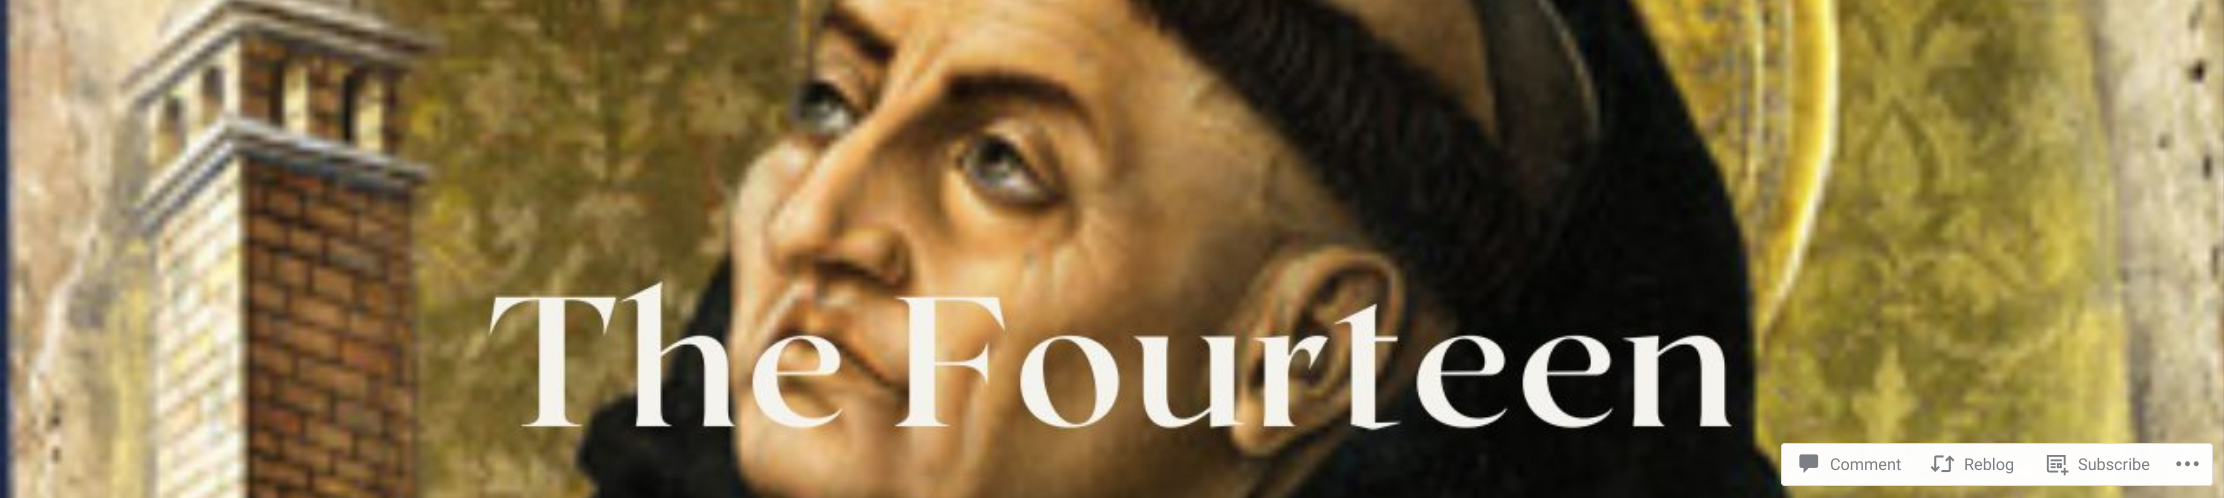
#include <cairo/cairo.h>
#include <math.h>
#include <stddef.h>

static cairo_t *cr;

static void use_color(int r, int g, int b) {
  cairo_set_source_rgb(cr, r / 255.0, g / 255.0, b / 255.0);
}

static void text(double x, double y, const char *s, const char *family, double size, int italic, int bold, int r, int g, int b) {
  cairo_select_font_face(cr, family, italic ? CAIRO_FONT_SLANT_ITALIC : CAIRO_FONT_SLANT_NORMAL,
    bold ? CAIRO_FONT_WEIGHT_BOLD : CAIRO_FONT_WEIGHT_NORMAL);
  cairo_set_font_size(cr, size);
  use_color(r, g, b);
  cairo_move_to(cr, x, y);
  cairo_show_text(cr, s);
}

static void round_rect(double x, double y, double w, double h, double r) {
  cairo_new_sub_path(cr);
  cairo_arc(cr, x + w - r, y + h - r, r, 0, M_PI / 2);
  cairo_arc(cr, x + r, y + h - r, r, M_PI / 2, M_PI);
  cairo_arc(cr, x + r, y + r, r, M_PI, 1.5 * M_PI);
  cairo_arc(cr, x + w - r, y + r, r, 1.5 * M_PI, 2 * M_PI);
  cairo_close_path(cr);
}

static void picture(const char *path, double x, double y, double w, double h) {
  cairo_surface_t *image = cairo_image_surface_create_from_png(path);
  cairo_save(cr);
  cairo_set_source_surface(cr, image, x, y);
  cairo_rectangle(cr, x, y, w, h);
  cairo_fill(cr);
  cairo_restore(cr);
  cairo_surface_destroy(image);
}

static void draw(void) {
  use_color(255, 255, 255);
  cairo_paint(cr);
  picture("img_01.png", 0, 0, 2224, 498);
  cairo_set_source_rgba(cr, 1, 1, 1, 0.98);
  round_rect(1781, 443, 432, 43, 4);
  cairo_fill(cr);
  round_rect(1781.5, 443.5, 431, 42, 3.5);
  cairo_set_source_rgba(cr, 0.863, 0.863, 0.871, 0.98);
  cairo_set_line_width(cr, 1);
  cairo_stroke(cr);
  picture("img_02.png", 1799, 454, 20, 19);
  picture("img_03.png", 1930, 455, 25, 18);
  picture("img_04.png", 2046, 455, 23, 21);
  picture("img_05.png", 2176, 461, 23, 6);
  text(1830, 470, "Comment", "Roboto", 16.25, 0, 0, 123, 127, 132);
  text(1964, 470, "Reblog", "Roboto", 16.25, 0, 0, 123, 127, 132);
  text(2078, 470, "Subscribe", "Roboto", 16.25, 0, 0, 123, 127, 132);
}

int main(void) {
  cairo_surface_t *surface = cairo_image_surface_create(CAIRO_FORMAT_RGB24, 2224, 498);
  cr = cairo_create(surface);
  cairo_font_options_t *options = cairo_font_options_create();
  cairo_font_options_set_hint_metrics(options, CAIRO_HINT_METRICS_OFF);
  cairo_font_options_set_hint_style(options, CAIRO_HINT_STYLE_NONE);
  cairo_set_font_options(cr, options);
  cairo_set_miter_limit(cr, 4);
  draw();
  cairo_surface_write_to_png(surface, "out.png");
  cairo_font_options_destroy(options);
  cairo_destroy(cr);
  cairo_surface_destroy(surface);
  return 0;
}
